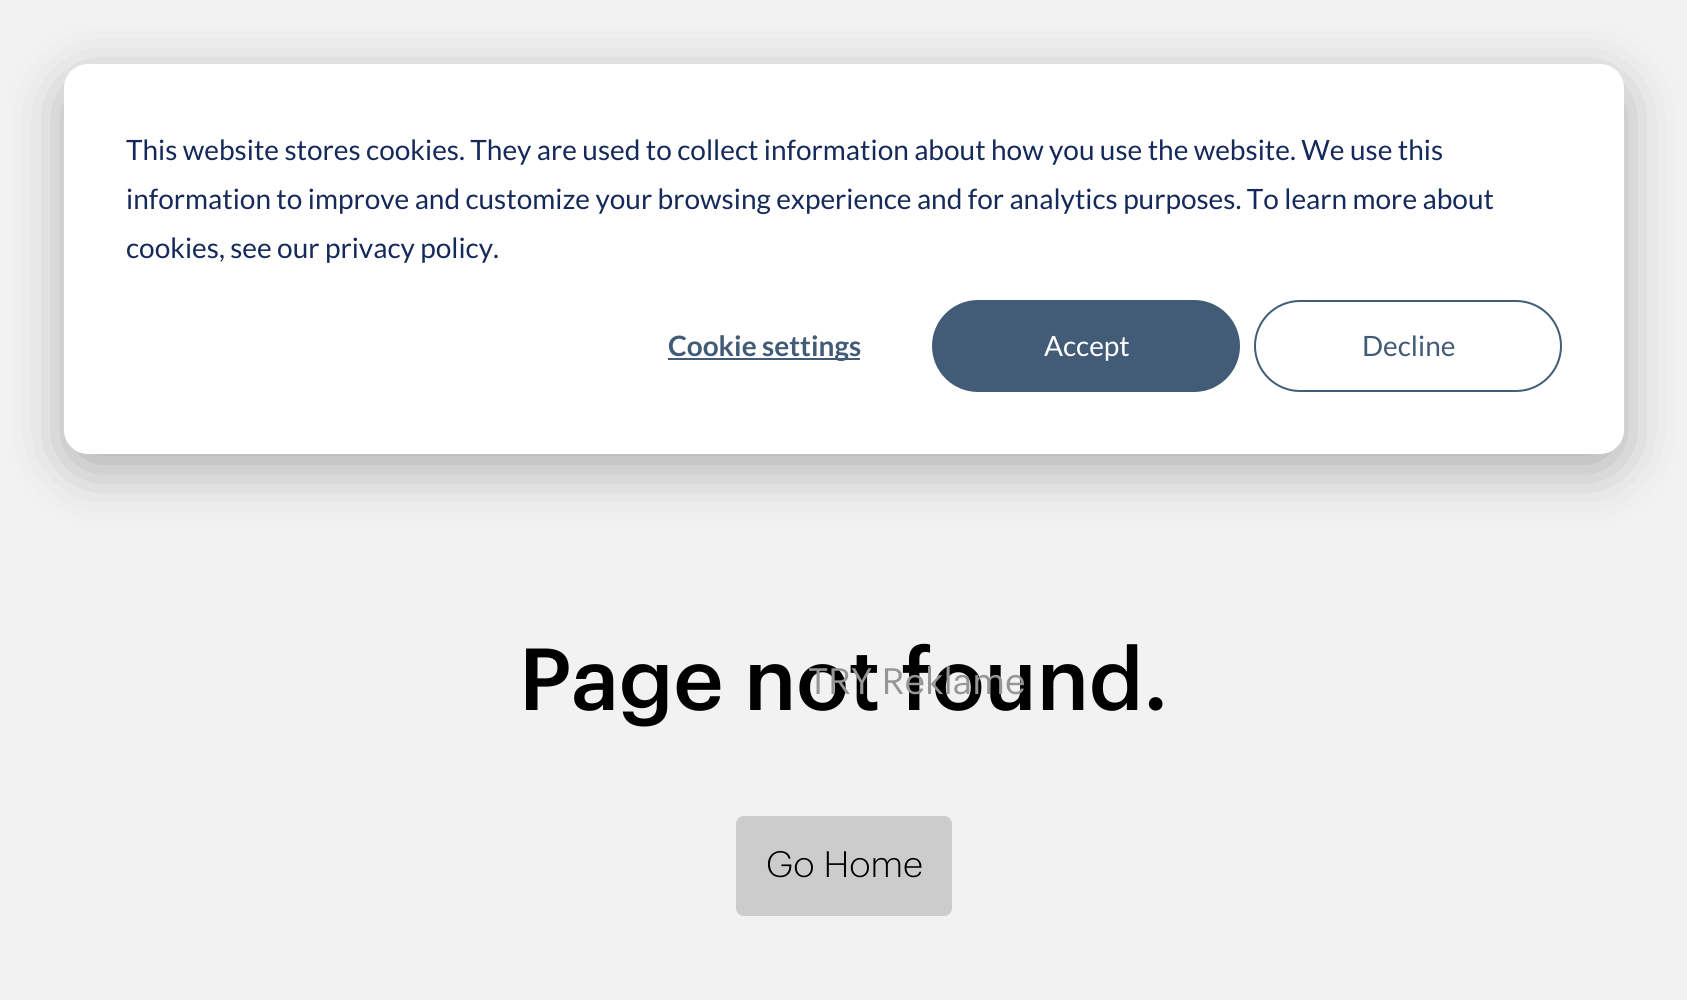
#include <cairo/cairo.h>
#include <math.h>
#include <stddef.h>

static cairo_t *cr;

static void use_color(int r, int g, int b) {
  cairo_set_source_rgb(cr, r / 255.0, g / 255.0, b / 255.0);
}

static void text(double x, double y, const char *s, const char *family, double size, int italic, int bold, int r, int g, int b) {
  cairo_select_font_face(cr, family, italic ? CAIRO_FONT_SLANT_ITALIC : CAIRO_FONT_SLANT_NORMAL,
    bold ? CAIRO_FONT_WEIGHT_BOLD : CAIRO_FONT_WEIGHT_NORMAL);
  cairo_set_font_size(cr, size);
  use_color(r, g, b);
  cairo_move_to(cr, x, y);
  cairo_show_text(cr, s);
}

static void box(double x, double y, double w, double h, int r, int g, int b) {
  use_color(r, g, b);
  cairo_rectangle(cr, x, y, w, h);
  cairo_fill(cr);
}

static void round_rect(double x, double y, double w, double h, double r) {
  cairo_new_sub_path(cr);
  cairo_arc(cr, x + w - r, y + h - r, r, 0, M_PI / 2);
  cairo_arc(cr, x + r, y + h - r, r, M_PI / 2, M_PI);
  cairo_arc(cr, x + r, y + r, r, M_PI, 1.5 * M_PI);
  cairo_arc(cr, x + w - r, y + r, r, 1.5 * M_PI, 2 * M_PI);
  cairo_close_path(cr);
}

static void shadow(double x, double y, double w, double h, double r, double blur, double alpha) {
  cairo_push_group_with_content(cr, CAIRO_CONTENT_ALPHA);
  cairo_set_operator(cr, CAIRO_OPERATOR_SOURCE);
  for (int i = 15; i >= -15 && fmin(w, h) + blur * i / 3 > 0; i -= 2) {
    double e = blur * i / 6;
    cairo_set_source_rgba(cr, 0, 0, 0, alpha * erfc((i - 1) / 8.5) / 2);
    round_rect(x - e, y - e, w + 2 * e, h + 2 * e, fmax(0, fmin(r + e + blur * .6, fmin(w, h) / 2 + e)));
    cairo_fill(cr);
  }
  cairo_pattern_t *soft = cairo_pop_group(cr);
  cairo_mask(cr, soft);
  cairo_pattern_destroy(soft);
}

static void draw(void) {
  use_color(242, 242, 242);
  cairo_paint(cr);
  use_color(0, 0, 0);
  shadow(64, 80, 1560, 390, 24, 28, 0.28);
  use_color(255, 255, 255);
  round_rect(64, 64, 1560, 390, 24);
  cairo_fill(cr);
  box(668, 358, 192, 2, 66, 91, 118);
  round_rect(933, 301, 306, 90, 45);
  cairo_fill_preserve(cr);
  cairo_stroke(cr);
  round_rect(1255, 301, 306, 90, 45);
  cairo_stroke(cr);
  use_color(204, 204, 204);
  round_rect(736, 816, 216, 100, 8);
  cairo_fill(cr);
  text(126, 160, "This website stores cookies. They are used to collect information about how you use the website. We use this", "Lato", 28, 0, 0, 21, 41, 90);
  text(126, 209, "information to improve and customize your browsing experience and for analytics purposes. To learn more about", "Lato", 28, 0, 0, 21, 41, 90);
  text(126, 258, "cookies, see our privacy policy.", "Lato", 28, 0, 0, 21, 41, 90);
  text(668, 356, "Cookie settings", "Lato", 28, 0, 1, 66, 91, 118);
  text(1044, 356, "Accept", "Lato", 28, 0, 0, 255, 255, 255);
  text(1362, 356, "Decline", "Lato", 28, 0, 0, 66, 91, 118);
  text(519, 710, "Page not found.", "Graphik Medium", 86, 0, 0, 0, 0, 0);
  text(766, 877, "Go Home", "Graphik Light", 36, 0, 0, 0, 0, 0);
  text(808, 694, "TRY Reklame", "Graphik", 36, 0, 0, 150, 150, 150);
}

int main(void) {
  cairo_surface_t *surface = cairo_image_surface_create(CAIRO_FORMAT_RGB24, 1687, 1000);
  cr = cairo_create(surface);
  cairo_font_options_t *options = cairo_font_options_create();
  cairo_font_options_set_hint_metrics(options, CAIRO_HINT_METRICS_OFF);
  cairo_font_options_set_hint_style(options, CAIRO_HINT_STYLE_NONE);
  cairo_set_font_options(cr, options);
  cairo_set_miter_limit(cr, 4);
  draw();
  cairo_surface_write_to_png(surface, "out.png");
  cairo_font_options_destroy(options);
  cairo_destroy(cr);
  cairo_surface_destroy(surface);
  return 0;
}
